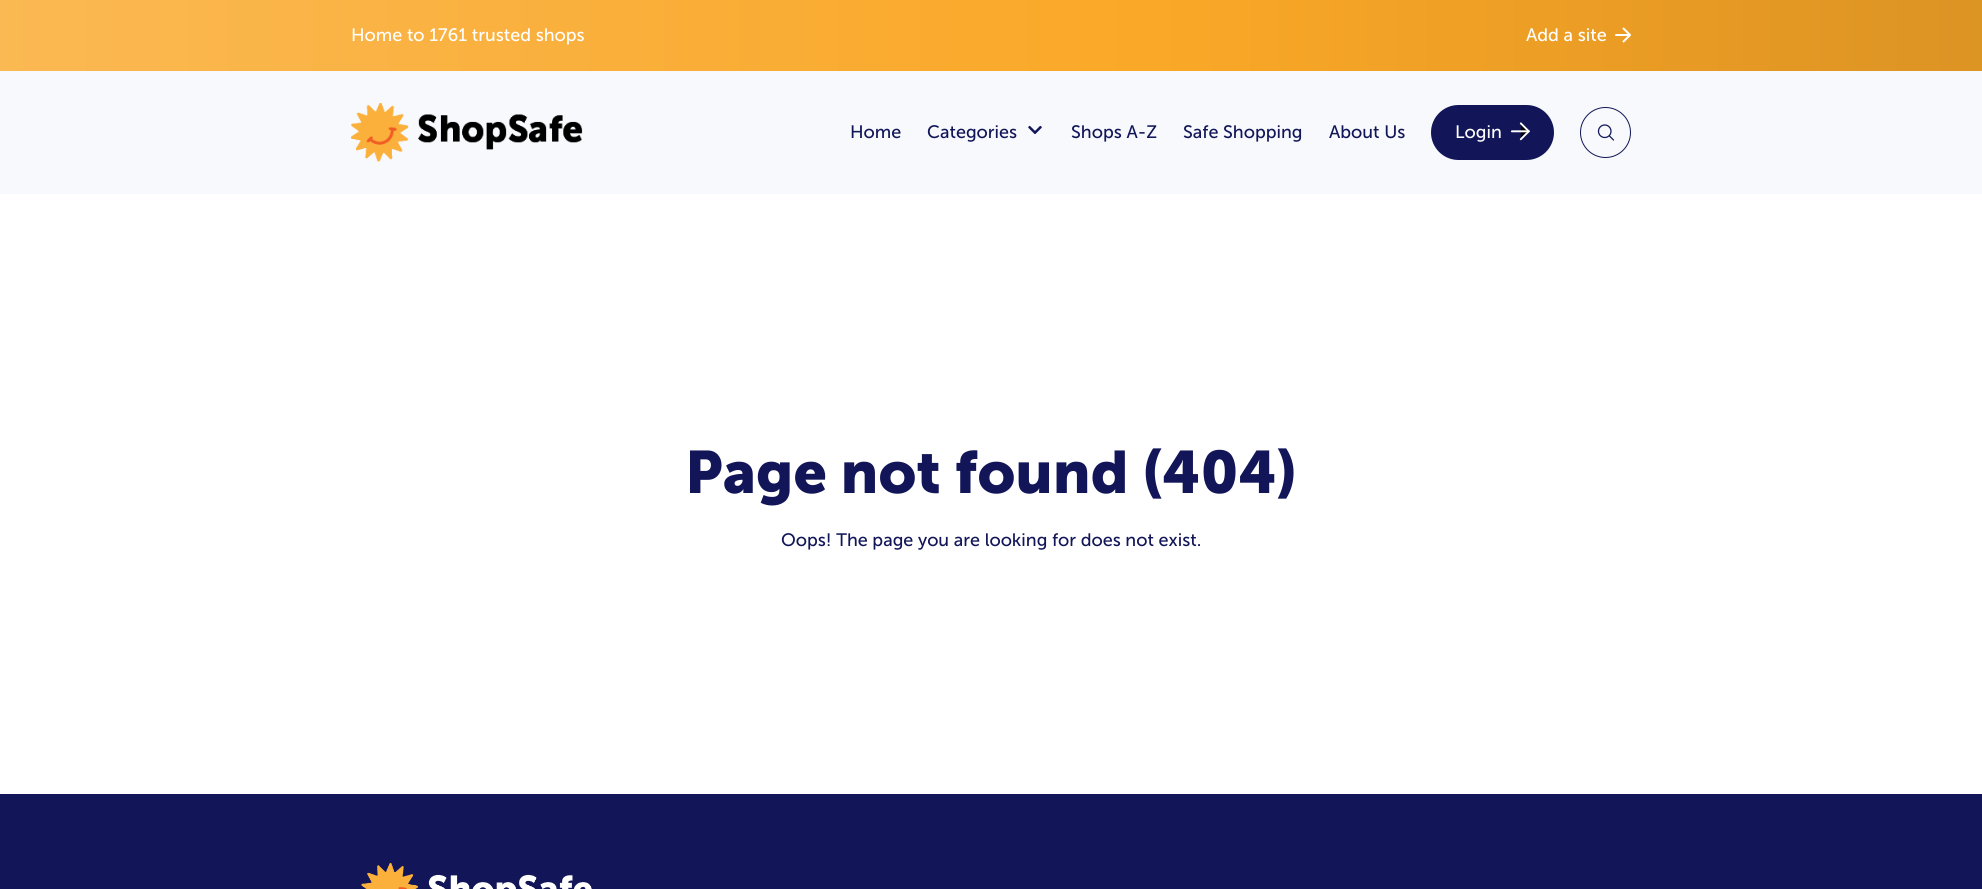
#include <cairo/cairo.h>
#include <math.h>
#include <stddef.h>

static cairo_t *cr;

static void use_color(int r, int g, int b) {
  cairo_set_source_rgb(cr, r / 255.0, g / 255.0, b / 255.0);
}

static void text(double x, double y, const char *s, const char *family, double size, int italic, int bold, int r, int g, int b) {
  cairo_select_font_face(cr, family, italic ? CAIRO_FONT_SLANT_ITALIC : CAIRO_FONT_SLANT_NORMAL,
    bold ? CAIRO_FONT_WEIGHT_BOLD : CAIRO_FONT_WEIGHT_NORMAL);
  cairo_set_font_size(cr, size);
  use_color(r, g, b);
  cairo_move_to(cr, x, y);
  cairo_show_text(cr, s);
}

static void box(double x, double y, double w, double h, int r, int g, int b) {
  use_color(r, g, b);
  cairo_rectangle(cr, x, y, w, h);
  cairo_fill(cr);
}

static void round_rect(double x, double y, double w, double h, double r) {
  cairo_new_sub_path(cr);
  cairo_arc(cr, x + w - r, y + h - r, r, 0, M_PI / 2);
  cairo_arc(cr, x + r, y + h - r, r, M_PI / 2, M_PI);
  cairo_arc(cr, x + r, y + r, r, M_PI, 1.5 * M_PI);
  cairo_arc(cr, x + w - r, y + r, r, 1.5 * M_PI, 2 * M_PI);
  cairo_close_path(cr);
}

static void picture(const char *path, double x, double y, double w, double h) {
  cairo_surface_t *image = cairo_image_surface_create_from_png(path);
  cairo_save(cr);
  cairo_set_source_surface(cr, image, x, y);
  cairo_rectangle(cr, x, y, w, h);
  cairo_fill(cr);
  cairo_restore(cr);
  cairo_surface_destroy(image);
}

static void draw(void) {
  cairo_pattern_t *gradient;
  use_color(247, 249, 252);
  cairo_paint(cr);
  gradient = cairo_pattern_create_linear(0, 71, 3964, 71);
  cairo_pattern_add_color_stop_rgba(gradient, 0, 0.984, 0.725, 0.325, 1);
  cairo_pattern_add_color_stop_rgba(gradient, 0.14, 0.98, 0.69, 0.239, 1);
  cairo_pattern_add_color_stop_rgba(gradient, 0.29, 0.98, 0.659, 0.153, 1);
  cairo_pattern_add_color_stop_rgba(gradient, 0.43, 0.906, 0.604, 0.141, 1);
  cairo_pattern_add_color_stop_rgba(gradient, 0.57, 0.82, 0.553, 0.137, 1);
  cairo_pattern_add_color_stop_rgba(gradient, 0.71, 0.737, 0.498, 0.137, 1);
  cairo_pattern_add_color_stop_rgba(gradient, 0.86, 0.651, 0.447, 0.133, 1);
  cairo_pattern_add_color_stop_rgba(gradient, 1, 0.565, 0.396, 0.133, 1);
  cairo_set_source(cr, gradient);
  cairo_pattern_destroy(gradient);
  cairo_rectangle(cr, 0, 0, 1982, 71);
  cairo_fill(cr);
  cairo_new_path(cr);
  cairo_move_to(cr, 1623.5, 28.5);
  cairo_line_to(cr, 1630, 35);
  cairo_line_to(cr, 1623.5, 41.5);
  cairo_move_to(cr, 1629.5, 35);
  cairo_line_to(cr, 1616, 35);
  use_color(255, 255, 255);
  cairo_set_line_cap(cr, CAIRO_LINE_CAP_ROUND);
  cairo_set_line_join(cr, CAIRO_LINE_JOIN_ROUND);
  cairo_stroke(cr);
  picture("img_01.png", 351, 103, 232, 59);
  picture("img_02.png", 1028, 125, 14, 10);
  use_color(18, 22, 88);
  round_rect(1431, 105, 123, 55, 27.5);
  cairo_fill(cr);
  picture("img_03.png", 1510, 122, 20, 19);
  cairo_arc(cr, 1605.5, 132.5, 25, 0, 2 * M_PI);
  cairo_set_line_width(cr, 1);
  cairo_set_line_cap(cr, CAIRO_LINE_CAP_BUTT);
  cairo_set_line_join(cr, CAIRO_LINE_JOIN_MITER);
  cairo_stroke(cr);
  picture("img_04.png", 1597, 124, 17, 17);
  box(0, 194, 1982, 600, 255, 255, 255);
  box(0, 794, 1982, 95, 18, 22, 88);
  picture("img_05.png", 361, 863, 231, 26);
  text(351, 41, "Home to 1761 trusted shops", "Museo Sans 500", 18, 0, 0, 255, 255, 255);
  text(1526, 41, "Add a site", "Museo Sans 500", 18, 0, 0, 255, 255, 255);
  text(850, 138, "Home", "Museo Sans 500", 18, 0, 0, 18, 22, 88);
  text(927, 138, "Categories", "Museo Sans 500", 18, 0, 0, 18, 22, 88);
  text(1071, 138, "Shops A-Z", "Museo Sans 500", 18, 0, 0, 18, 22, 88);
  text(1183, 138, "Safe Shopping", "Museo Sans 500", 18, 0, 0, 18, 22, 88);
  text(1329, 138, "About Us", "Museo Sans 500", 18, 0, 0, 18, 22, 88);
  text(1455, 138, "Login", "Museo Sans 500", 18, 0, 0, 255, 255, 255);
  text(685, 493, "Page not found (404)", "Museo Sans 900", 59.5, 0, 1, 18, 22, 88);
  text(781, 546, "Oops! The page you are looking for does not exist.", "Museo Sans 500", 18, 0, 0, 18, 22, 88);
}

int main(void) {
  cairo_surface_t *surface = cairo_image_surface_create(CAIRO_FORMAT_RGB24, 1982, 889);
  cr = cairo_create(surface);
  cairo_font_options_t *options = cairo_font_options_create();
  cairo_font_options_set_hint_metrics(options, CAIRO_HINT_METRICS_OFF);
  cairo_font_options_set_hint_style(options, CAIRO_HINT_STYLE_NONE);
  cairo_set_font_options(cr, options);
  cairo_set_miter_limit(cr, 4);
  draw();
  cairo_surface_write_to_png(surface, "out.png");
  cairo_font_options_destroy(options);
  cairo_destroy(cr);
  cairo_surface_destroy(surface);
  return 0;
}
